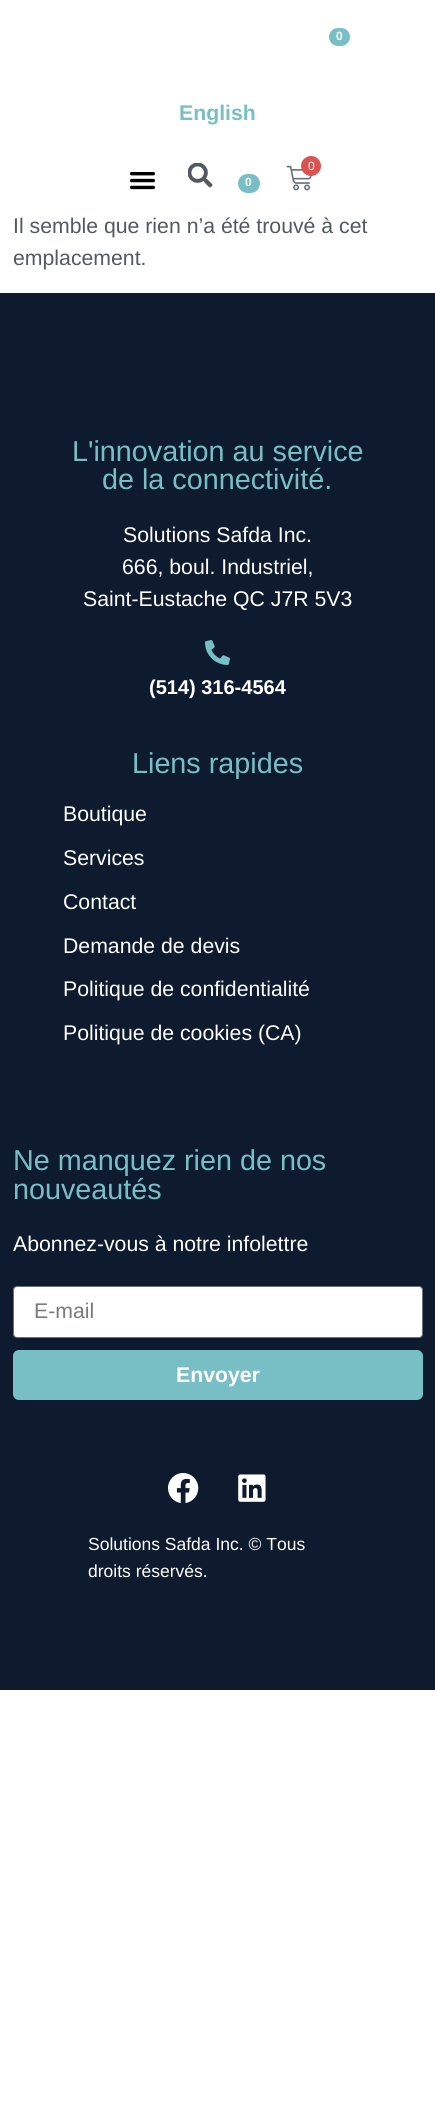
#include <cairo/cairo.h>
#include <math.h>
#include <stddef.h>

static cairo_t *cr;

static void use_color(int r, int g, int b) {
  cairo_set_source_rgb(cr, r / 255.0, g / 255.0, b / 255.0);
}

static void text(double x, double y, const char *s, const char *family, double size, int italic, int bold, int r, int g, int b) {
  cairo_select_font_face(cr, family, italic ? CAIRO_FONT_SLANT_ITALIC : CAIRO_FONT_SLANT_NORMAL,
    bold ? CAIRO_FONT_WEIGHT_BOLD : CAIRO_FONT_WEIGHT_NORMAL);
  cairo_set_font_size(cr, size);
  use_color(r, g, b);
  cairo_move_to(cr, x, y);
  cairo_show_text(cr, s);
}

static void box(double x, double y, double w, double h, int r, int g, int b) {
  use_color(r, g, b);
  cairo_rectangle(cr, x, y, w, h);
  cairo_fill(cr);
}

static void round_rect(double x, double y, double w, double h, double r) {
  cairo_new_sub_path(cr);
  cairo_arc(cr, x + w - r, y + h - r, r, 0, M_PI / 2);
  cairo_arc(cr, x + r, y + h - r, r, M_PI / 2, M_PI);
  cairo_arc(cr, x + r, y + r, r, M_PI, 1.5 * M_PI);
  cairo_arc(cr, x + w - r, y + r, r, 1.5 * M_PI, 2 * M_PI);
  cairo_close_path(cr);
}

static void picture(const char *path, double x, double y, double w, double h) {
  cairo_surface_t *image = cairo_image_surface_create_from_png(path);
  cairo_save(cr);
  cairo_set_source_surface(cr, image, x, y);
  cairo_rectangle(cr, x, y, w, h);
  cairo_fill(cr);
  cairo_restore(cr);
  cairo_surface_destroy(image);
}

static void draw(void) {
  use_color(255, 255, 255);
  cairo_paint(cr);
  use_color(120, 191, 197);
  round_rect(329, 28, 21, 18, 9);
  cairo_fill(cr);
  picture("img_01.png", 129, 172, 27, 18);
  picture("img_02.png", 188, 163, 25, 25);
  round_rect(238, 174, 22, 19, 9.5);
  cairo_fill(cr);
  picture("img_03.png", 286, 165, 26, 26);
  use_color(217, 83, 79);
  cairo_arc(cr, 311, 166, 10, 0, 2 * M_PI);
  cairo_fill(cr);
  box(0, 293, 435, 1397, 14, 27, 47);
  picture("img_04.png", 205, 640, 25, 25);
  use_color(255, 255, 255);
  round_rect(13.5, 1286.5, 409, 51, 3.5);
  cairo_fill_preserve(cr);
  use_color(105, 114, 125);
  cairo_set_line_width(cr, 1);
  cairo_stroke(cr);
  use_color(120, 191, 197);
  round_rect(13, 1350, 410, 50, 6);
  cairo_fill(cr);
  picture("img_05.png", 168, 1473, 31, 30);
  picture("img_06.png", 238, 1474, 28, 28);
  text(336, 40, "0", "Liberation Sans", 12, 0, 1, 255, 255, 255);
  text(179, 120, "English", "Liberation Sans", 21.25, 0, 1, 120, 191, 197);
  text(245, 186, "0", "Liberation Sans", 12, 0, 1, 255, 255, 255);
  text(308, 170, "0", "Liberation Sans", 12, 0, 0, 255, 255, 255);
  text(13, 233, "Il semble que rien n’a été trouvé à cet", "Liberation Sans", 21.25, 0, 0, 84, 89, 95);
  text(13, 265, "emplacement.", "Liberation Sans", 21.25, 0, 0, 84, 89, 95);
  text(72, 461, "L'innovation au service", "Liberation Sans", 28.75, 0, 0, 120, 191, 197);
  text(102, 489, "de la connectivité.", "Liberation Sans", 28.75, 0, 0, 120, 191, 197);
  text(123, 542, "Solutions Safda Inc.", "Liberation Sans", 21.25, 0, 0, 255, 255, 255);
  text(122, 574, "666, boul. Industriel,", "Liberation Sans", 21.25, 0, 0, 255, 255, 255);
  text(83, 606, "Saint-Eustache QC J7R 5V3", "Liberation Sans", 21.25, 0, 0, 255, 255, 255);
  text(149, 694, "(514) 316-4564", "Liberation Sans", 20, 0, 1, 255, 255, 255);
  text(132, 773, "Liens rapides", "Liberation Sans", 28.75, 0, 0, 120, 191, 197);
  text(63, 821, "Boutique", "Liberation Sans", 21.25, 0, 0, 255, 255, 255);
  text(63, 865, "Services", "Liberation Sans", 21.25, 0, 0, 255, 255, 255);
  text(63, 909, "Contact", "Liberation Sans", 21.25, 0, 0, 255, 255, 255);
  text(63, 953, "Demande de devis", "Liberation Sans", 21.25, 0, 0, 255, 255, 255);
  text(63, 996, "Politique de confidentialité", "Liberation Sans", 21.25, 0, 0, 255, 255, 255);
  text(63, 1040, "Politique de cookies (CA)", "Liberation Sans", 21.25, 0, 0, 255, 255, 255);
  text(13, 1170, "Ne manquez rien de nos", "Liberation Sans", 28.75, 0, 0, 120, 191, 197);
  text(13, 1199, "nouveautés", "Liberation Sans", 28.75, 0, 0, 120, 191, 197);
  text(13, 1251, "Abonnez-vous à notre infolettre", "Liberation Sans", 21.25, 0, 0, 255, 255, 255);
  text(34, 1318, "E-mail", "Liberation Sans", 21.25, 0, 0, 121, 122, 124);
  text(176, 1382, "Envoyer", "Liberation Sans", 21.25, 0, 1, 255, 255, 255);
  text(88, 1550, "Solutions Safda Inc. © Tous", "Liberation Sans", 17.5, 0, 0, 255, 255, 255);
  text(88, 1577, "droits réservés.", "Liberation Sans", 17.5, 0, 0, 255, 255, 255);
}

int main(void) {
  cairo_surface_t *surface = cairo_image_surface_create(CAIRO_FORMAT_RGB24, 435, 2124);
  cr = cairo_create(surface);
  cairo_font_options_t *options = cairo_font_options_create();
  cairo_font_options_set_hint_metrics(options, CAIRO_HINT_METRICS_OFF);
  cairo_font_options_set_hint_style(options, CAIRO_HINT_STYLE_NONE);
  cairo_set_font_options(cr, options);
  cairo_set_miter_limit(cr, 4);
  draw();
  cairo_surface_write_to_png(surface, "out.png");
  cairo_font_options_destroy(options);
  cairo_destroy(cr);
  cairo_surface_destroy(surface);
  return 0;
}
